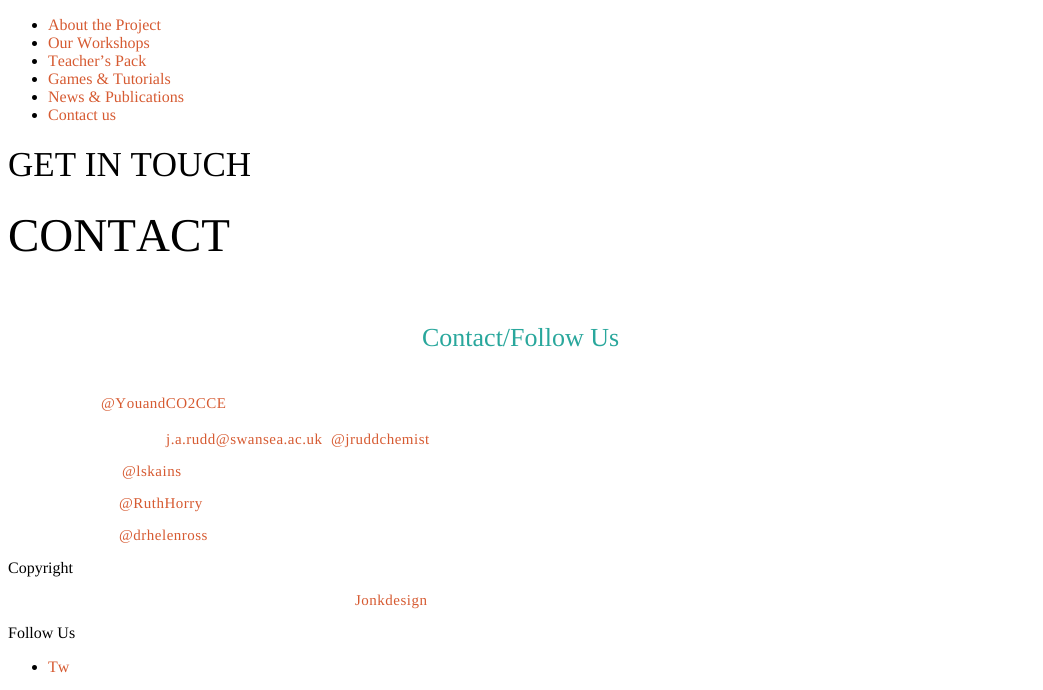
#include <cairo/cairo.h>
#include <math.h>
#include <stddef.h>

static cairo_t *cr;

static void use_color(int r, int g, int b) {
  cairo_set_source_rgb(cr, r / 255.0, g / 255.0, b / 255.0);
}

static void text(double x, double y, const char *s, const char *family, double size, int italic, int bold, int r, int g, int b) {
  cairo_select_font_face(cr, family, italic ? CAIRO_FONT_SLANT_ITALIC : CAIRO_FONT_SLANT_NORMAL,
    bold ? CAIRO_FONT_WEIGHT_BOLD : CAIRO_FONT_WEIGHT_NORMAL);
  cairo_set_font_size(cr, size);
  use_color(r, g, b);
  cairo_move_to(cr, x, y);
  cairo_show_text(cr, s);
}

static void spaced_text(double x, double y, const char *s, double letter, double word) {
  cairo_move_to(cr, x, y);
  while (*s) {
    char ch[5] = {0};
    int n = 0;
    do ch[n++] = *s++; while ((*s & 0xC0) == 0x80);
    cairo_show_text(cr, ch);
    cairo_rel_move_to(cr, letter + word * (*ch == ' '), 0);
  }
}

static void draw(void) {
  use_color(255, 255, 255);
  cairo_paint(cr);
  use_color(0, 0, 0);
  cairo_arc(cr, 34.5, 25.5, 2.5, 0, 2 * M_PI);
  cairo_fill(cr);
  cairo_arc(cr, 34.5, 43.5, 2.5, 0, 2 * M_PI);
  cairo_fill(cr);
  cairo_arc(cr, 34.5, 61.5, 2.5, 0, 2 * M_PI);
  cairo_fill(cr);
  cairo_arc(cr, 34.5, 79.5, 2.5, 0, 2 * M_PI);
  cairo_fill(cr);
  cairo_arc(cr, 34.5, 97.5, 2.5, 0, 2 * M_PI);
  cairo_fill(cr);
  cairo_arc(cr, 34.5, 115.5, 2.5, 0, 2 * M_PI);
  cairo_fill(cr);
  cairo_arc(cr, 34.5, 667.5, 2.5, 0, 2 * M_PI);
  cairo_fill(cr);
  text(48, 30, "About the Project", "Liberation Serif", 16, 0, 0, 214, 90, 49);
  text(48, 48, "Our Workshops", "Liberation Serif", 16, 0, 0, 214, 90, 49);
  text(48, 66, "Teacher’s Pack", "Liberation Serif", 16, 0, 0, 214, 90, 49);
  text(48, 84, "Games & Tutorials", "Liberation Serif", 16, 0, 0, 214, 90, 49);
  text(48, 102, "News & Publications", "Liberation Serif", 16, 0, 0, 214, 90, 49);
  text(48, 120, "Contact us", "Liberation Serif", 16, 0, 0, 214, 90, 49);
  text(8, 176, "GET IN TOUCH", "Liberation Serif", 35, 0, 0, 0, 0, 0);
  text(8, 251, "CONTACT", "Liberation Serif", 47, 0, 0, 0, 0, 0);
  text(422, 346, "Contact/Follow Us", "Liberation Serif", 26, 0, 0, 41, 167, 156);
  cairo_set_font_size(cr, 15);
  use_color(214, 90, 49);
  spaced_text(101, 408, "@YouandCO2CCE", 0.5, 0);
  spaced_text(166, 444, "j.a.rudd@swansea.ac.uk", 0.5, 0);
  spaced_text(331, 444, "@jruddchemist", 0.5, 0);
  spaced_text(122, 476, "@lskains", 0.5, 0);
  spaced_text(119, 508, "@RuthHorry", 0.5, 0);
  spaced_text(119, 540, "@drhelenross", 0.5, 0);
  text(8, 573, "Copyright", "Liberation Serif", 16, 0, 0, 0, 0, 0);
  cairo_set_font_size(cr, 15);
  use_color(214, 90, 49);
  spaced_text(355, 605, "Jonkdesign", 0.5, 0);
  text(8, 638, "Follow Us", "Liberation Serif", 16, 0, 0, 0, 0, 0);
  text(48, 672, "Tw", "Liberation Serif", 16, 0, 0, 214, 90, 49);
}

int main(void) {
  cairo_surface_t *surface = cairo_image_surface_create(CAIRO_FORMAT_RGB24, 1043, 690);
  cr = cairo_create(surface);
  cairo_font_options_t *options = cairo_font_options_create();
  cairo_font_options_set_hint_metrics(options, CAIRO_HINT_METRICS_OFF);
  cairo_font_options_set_hint_style(options, CAIRO_HINT_STYLE_NONE);
  cairo_set_font_options(cr, options);
  cairo_set_miter_limit(cr, 4);
  draw();
  cairo_surface_write_to_png(surface, "out.png");
  cairo_font_options_destroy(options);
  cairo_destroy(cr);
  cairo_surface_destroy(surface);
  return 0;
}
